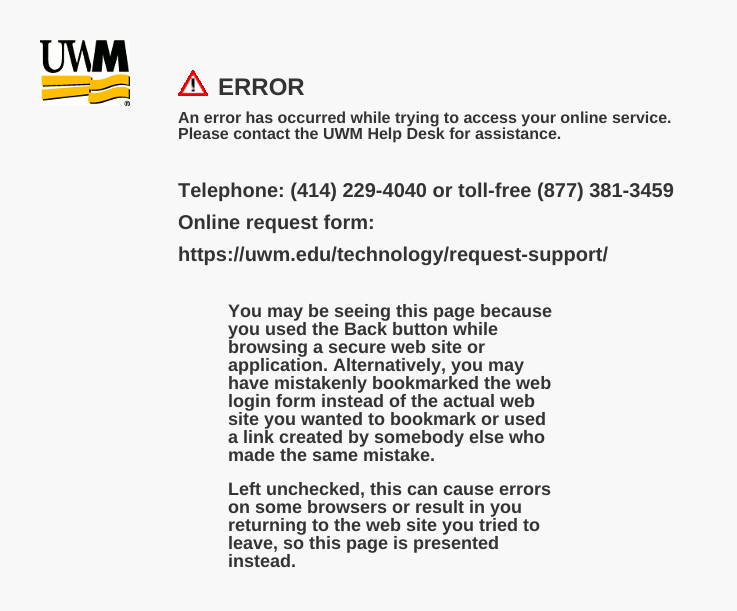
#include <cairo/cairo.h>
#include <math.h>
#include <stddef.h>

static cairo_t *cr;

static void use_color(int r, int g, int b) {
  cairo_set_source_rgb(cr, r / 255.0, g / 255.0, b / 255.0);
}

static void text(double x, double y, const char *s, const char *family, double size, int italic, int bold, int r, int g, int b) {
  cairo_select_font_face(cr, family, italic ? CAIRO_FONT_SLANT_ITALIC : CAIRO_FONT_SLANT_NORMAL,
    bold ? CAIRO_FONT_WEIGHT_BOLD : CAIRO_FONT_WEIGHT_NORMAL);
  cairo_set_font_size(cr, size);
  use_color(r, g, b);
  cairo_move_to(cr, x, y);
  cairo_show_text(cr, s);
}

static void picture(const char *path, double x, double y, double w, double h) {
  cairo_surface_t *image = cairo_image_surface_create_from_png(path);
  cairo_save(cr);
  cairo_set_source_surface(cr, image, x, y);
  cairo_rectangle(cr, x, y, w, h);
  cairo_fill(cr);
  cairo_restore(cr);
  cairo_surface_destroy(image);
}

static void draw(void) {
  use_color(248, 248, 248);
  cairo_paint(cr);
  picture("img_01.png", 40, 40, 90, 66);
  picture("img_02.png", 178, 70, 30, 26);
  text(218, 95, "ERROR", "Liberation Sans", 24, 0, 1, 51, 51, 51);
  text(178, 123, "An error has occurred while trying to access your online service.", "Liberation Sans", 16, 0, 1, 51, 51, 51);
  text(178, 139, "Please contact the UWM Help Desk for assistance.", "Liberation Sans", 16, 0, 1, 51, 51, 51);
  text(178, 197, "Telephone: (414) 229-4040 or toll-free (877) 381-3459", "Liberation Sans", 20, 0, 1, 51, 51, 51);
  text(178, 229, "Online request form:", "Liberation Sans", 20, 0, 1, 51, 51, 51);
  text(178, 261, "https://uwm.edu/technology/request-support/", "Liberation Sans", 20, 0, 1, 51, 51, 51);
  text(228, 317, "You may be seeing this page because", "Liberation Sans", 18, 0, 1, 51, 51, 51);
  text(228, 335, "you used the Back button while", "Liberation Sans", 18, 0, 1, 51, 51, 51);
  text(228, 353, "browsing a secure web site or", "Liberation Sans", 18, 0, 1, 51, 51, 51);
  text(228, 371, "application. Alternatively, you may", "Liberation Sans", 18, 0, 1, 51, 51, 51);
  text(228, 389, "have mistakenly bookmarked the web", "Liberation Sans", 18, 0, 1, 51, 51, 51);
  text(228, 407, "login form instead of the actual web", "Liberation Sans", 18, 0, 1, 51, 51, 51);
  text(228, 425, "site you wanted to bookmark or used", "Liberation Sans", 18, 0, 1, 51, 51, 51);
  text(228, 443, "a link created by somebody else who", "Liberation Sans", 18, 0, 1, 51, 51, 51);
  text(228, 461, "made the same mistake.", "Liberation Sans", 18, 0, 1, 51, 51, 51);
  text(228, 495, "Left unchecked, this can cause errors", "Liberation Sans", 18, 0, 1, 51, 51, 51);
  text(228, 513, "on some browsers or result in you", "Liberation Sans", 18, 0, 1, 51, 51, 51);
  text(228, 531, "returning to the web site you tried to", "Liberation Sans", 18, 0, 1, 51, 51, 51);
  text(228, 549, "leave, so this page is presented", "Liberation Sans", 18, 0, 1, 51, 51, 51);
  text(228, 567, "instead.", "Liberation Sans", 18, 0, 1, 51, 51, 51);
}

int main(void) {
  cairo_surface_t *surface = cairo_image_surface_create(CAIRO_FORMAT_RGB24, 737, 611);
  cr = cairo_create(surface);
  cairo_font_options_t *options = cairo_font_options_create();
  cairo_font_options_set_hint_metrics(options, CAIRO_HINT_METRICS_OFF);
  cairo_font_options_set_hint_style(options, CAIRO_HINT_STYLE_NONE);
  cairo_set_font_options(cr, options);
  cairo_set_miter_limit(cr, 4);
  draw();
  cairo_surface_write_to_png(surface, "out.png");
  cairo_font_options_destroy(options);
  cairo_destroy(cr);
  cairo_surface_destroy(surface);
  return 0;
}
